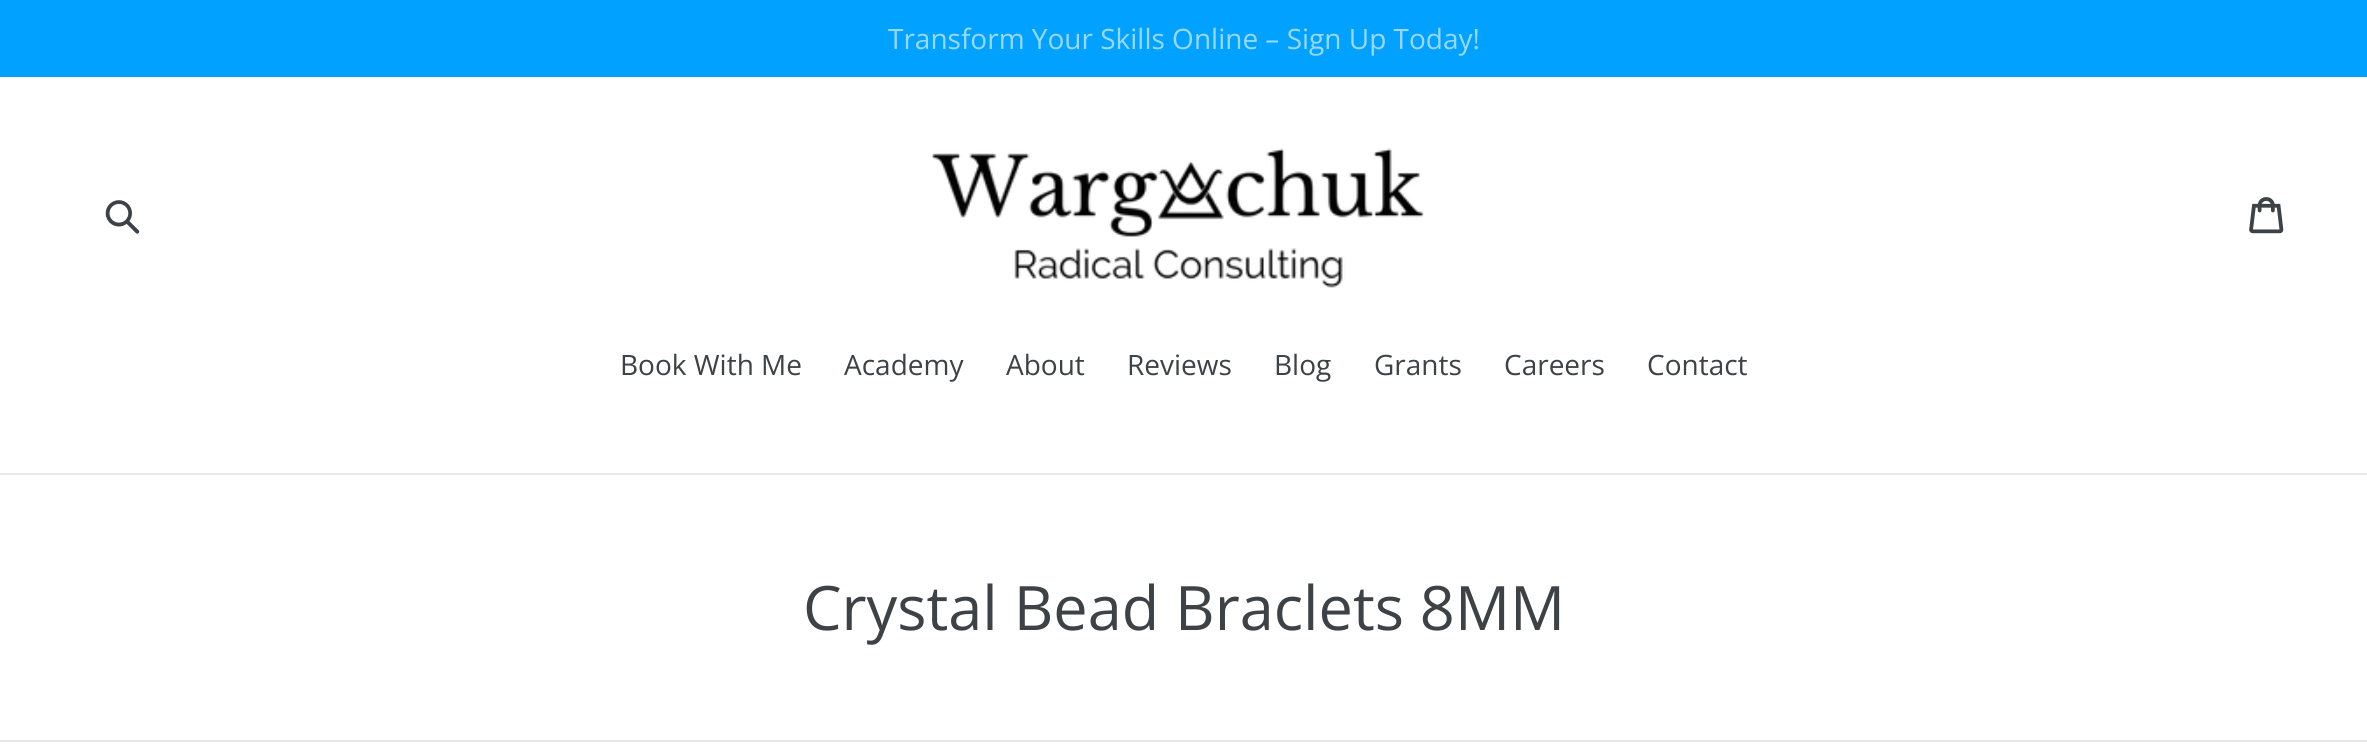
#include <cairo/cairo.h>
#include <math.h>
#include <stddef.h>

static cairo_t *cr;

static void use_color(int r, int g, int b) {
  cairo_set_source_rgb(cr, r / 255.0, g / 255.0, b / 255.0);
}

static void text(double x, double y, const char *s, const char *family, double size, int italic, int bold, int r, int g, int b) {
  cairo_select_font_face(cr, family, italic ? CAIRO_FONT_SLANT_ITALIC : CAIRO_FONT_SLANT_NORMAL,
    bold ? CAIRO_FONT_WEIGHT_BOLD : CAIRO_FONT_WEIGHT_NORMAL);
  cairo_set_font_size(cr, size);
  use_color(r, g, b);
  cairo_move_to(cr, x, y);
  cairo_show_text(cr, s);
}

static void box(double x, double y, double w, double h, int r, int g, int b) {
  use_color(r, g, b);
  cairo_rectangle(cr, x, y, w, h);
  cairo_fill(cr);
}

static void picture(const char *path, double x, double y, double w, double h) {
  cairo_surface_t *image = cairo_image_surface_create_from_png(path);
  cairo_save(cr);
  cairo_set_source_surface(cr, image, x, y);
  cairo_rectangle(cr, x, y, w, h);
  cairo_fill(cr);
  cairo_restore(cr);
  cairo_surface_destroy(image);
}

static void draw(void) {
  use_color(255, 255, 255);
  cairo_paint(cr);
  box(0, 0, 2367, 77, 0, 161, 255);
  picture("img_01.png", 105, 200, 35, 34);
  picture("img_02.png", 932, 148, 492, 140);
  picture("img_03.png", 2249, 197, 35, 37);
  box(0, 473, 2367, 2, 232, 233, 235);
  box(0, 740, 2367, 2, 232, 233, 235);
  text(888, 49, "Transform Your Skills Online – Sign Up Today!", "Open Sans", 28, 0, 0, 153, 217, 255);
  text(620, 375, "Book With Me", "Open Sans", 28, 0, 0, 61, 66, 70);
  text(844, 375, "Academy", "Open Sans", 28, 0, 0, 61, 66, 70);
  text(1006, 375, "About", "Open Sans", 28, 0, 0, 61, 66, 70);
  text(1127, 375, "Reviews", "Open Sans", 28, 0, 0, 61, 66, 70);
  text(1274, 375, "Blog", "Open Sans", 28, 0, 0, 61, 66, 70);
  text(1374, 375, "Grants", "Open Sans", 28, 0, 0, 61, 66, 70);
  text(1504, 375, "Careers", "Open Sans", 28, 0, 0, 61, 66, 70);
  text(1647, 375, "Contact", "Open Sans", 28, 0, 0, 61, 66, 70);
  text(803, 630, "Crystal Bead Braclets 8MM", "Open Sans", 61.25, 0, 0, 61, 66, 70);
}

int main(void) {
  cairo_surface_t *surface = cairo_image_surface_create(CAIRO_FORMAT_RGB24, 2367, 745);
  cr = cairo_create(surface);
  cairo_font_options_t *options = cairo_font_options_create();
  cairo_font_options_set_hint_metrics(options, CAIRO_HINT_METRICS_OFF);
  cairo_font_options_set_hint_style(options, CAIRO_HINT_STYLE_NONE);
  cairo_set_font_options(cr, options);
  cairo_set_miter_limit(cr, 4);
  draw();
  cairo_surface_write_to_png(surface, "out.png");
  cairo_font_options_destroy(options);
  cairo_destroy(cr);
  cairo_surface_destroy(surface);
  return 0;
}
